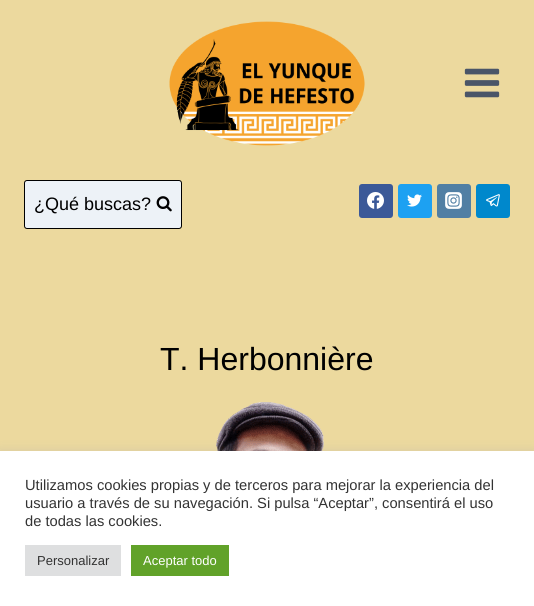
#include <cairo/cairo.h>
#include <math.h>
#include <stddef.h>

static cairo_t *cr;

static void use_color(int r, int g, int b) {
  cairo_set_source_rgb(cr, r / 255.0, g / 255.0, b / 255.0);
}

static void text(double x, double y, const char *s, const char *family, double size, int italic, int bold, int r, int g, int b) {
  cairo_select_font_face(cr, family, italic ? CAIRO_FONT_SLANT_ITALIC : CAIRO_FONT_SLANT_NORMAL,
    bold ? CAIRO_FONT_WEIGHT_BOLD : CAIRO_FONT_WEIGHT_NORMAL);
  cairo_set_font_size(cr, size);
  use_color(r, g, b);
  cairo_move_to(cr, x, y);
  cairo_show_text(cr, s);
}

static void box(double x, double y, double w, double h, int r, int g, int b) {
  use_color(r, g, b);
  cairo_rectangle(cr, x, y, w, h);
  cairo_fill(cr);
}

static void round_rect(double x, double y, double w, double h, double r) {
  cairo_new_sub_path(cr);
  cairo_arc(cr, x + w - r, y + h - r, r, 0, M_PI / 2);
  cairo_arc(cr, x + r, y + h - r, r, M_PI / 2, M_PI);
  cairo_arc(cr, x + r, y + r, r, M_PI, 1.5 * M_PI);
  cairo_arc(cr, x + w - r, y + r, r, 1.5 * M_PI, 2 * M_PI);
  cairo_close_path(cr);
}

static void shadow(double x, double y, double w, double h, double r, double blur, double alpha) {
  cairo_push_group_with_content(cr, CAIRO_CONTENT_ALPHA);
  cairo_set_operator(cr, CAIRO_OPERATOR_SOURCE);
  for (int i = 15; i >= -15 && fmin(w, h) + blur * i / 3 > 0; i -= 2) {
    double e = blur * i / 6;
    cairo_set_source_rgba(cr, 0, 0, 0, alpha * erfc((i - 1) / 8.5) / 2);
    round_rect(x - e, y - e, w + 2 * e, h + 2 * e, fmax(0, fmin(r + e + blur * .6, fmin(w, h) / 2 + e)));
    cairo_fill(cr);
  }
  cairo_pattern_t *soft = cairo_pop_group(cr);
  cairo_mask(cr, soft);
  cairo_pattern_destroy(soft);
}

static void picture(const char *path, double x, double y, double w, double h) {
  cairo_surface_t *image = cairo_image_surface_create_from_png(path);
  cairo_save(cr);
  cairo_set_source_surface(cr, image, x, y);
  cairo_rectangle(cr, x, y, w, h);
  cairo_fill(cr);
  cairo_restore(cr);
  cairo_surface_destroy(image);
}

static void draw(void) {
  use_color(236, 217, 158);
  cairo_paint(cr);
  picture("img_01.png", 169, 21, 196, 125);
  picture("img_02.png", 464, 68, 36, 30);
  use_color(237, 242, 247);
  round_rect(24.5, 180.5, 157, 48, 2.5);
  cairo_fill_preserve(cr);
  use_color(0, 0, 0);
  cairo_set_line_width(cr, 1);
  cairo_stroke(cr);
  picture("img_03.png", 156, 196, 16, 16);
  use_color(59, 89, 152);
  round_rect(359, 184, 34, 34, 3);
  cairo_fill(cr);
  picture("img_04.png", 367, 192, 17, 17);
  use_color(29, 161, 242);
  round_rect(398, 184, 34, 34, 3);
  cairo_fill(cr);
  picture("img_05.png", 407, 194, 15, 13);
  use_color(81, 127, 164);
  round_rect(437, 184, 34, 34, 3);
  cairo_fill(cr);
  picture("img_06.png", 445, 192, 17, 17);
  use_color(0, 136, 204);
  round_rect(476, 184, 34, 34, 3);
  cairo_fill(cr);
  picture("img_07.png", 486, 194, 14, 13);
  picture("img_08.png", 216, 402, 108, 49);
  use_color(172, 171, 171);
  shadow(0, 450, 534, 155, 0, 5, 0.3);
  box(0, 451, 534, 155, 255, 255, 255);
  box(25, 545, 96, 31, 222, 223, 224);
  box(131, 545, 98, 31, 97, 162, 41);
  text(34, 210, "¿Qué buscas?", "Liberation Sans", 18, 0, 0, 0, 0, 0);
  text(160, 370, "T. Herbonnière", "Liberation Sans", 32, 0, 0, 0, 0, 0);
  text(25, 490, "Utilizamos cookies propias y de terceros para mejorar la experiencia del", "Liberation Sans", 14.7, 0, 0, 51, 51, 51);
  text(25, 508, "usuario a través de su navegación. Si pulsa “Aceptar”, consentirá el uso", "Liberation Sans", 14.7, 0, 0, 51, 51, 51);
  text(25, 526, "de todas las cookies.", "Liberation Sans", 14.7, 0, 0, 51, 51, 51);
  text(37, 565, "Personalizar", "Liberation Sans", 13, 0, 0, 51, 51, 51);
  text(143, 565, "Aceptar todo", "Liberation Sans", 13, 0, 0, 255, 255, 255);
}

int main(void) {
  cairo_surface_t *surface = cairo_image_surface_create(CAIRO_FORMAT_RGB24, 534, 606);
  cr = cairo_create(surface);
  cairo_font_options_t *options = cairo_font_options_create();
  cairo_font_options_set_hint_metrics(options, CAIRO_HINT_METRICS_OFF);
  cairo_font_options_set_hint_style(options, CAIRO_HINT_STYLE_NONE);
  cairo_set_font_options(cr, options);
  cairo_set_miter_limit(cr, 4);
  draw();
  cairo_surface_write_to_png(surface, "out.png");
  cairo_font_options_destroy(options);
  cairo_destroy(cr);
  cairo_surface_destroy(surface);
  return 0;
}
